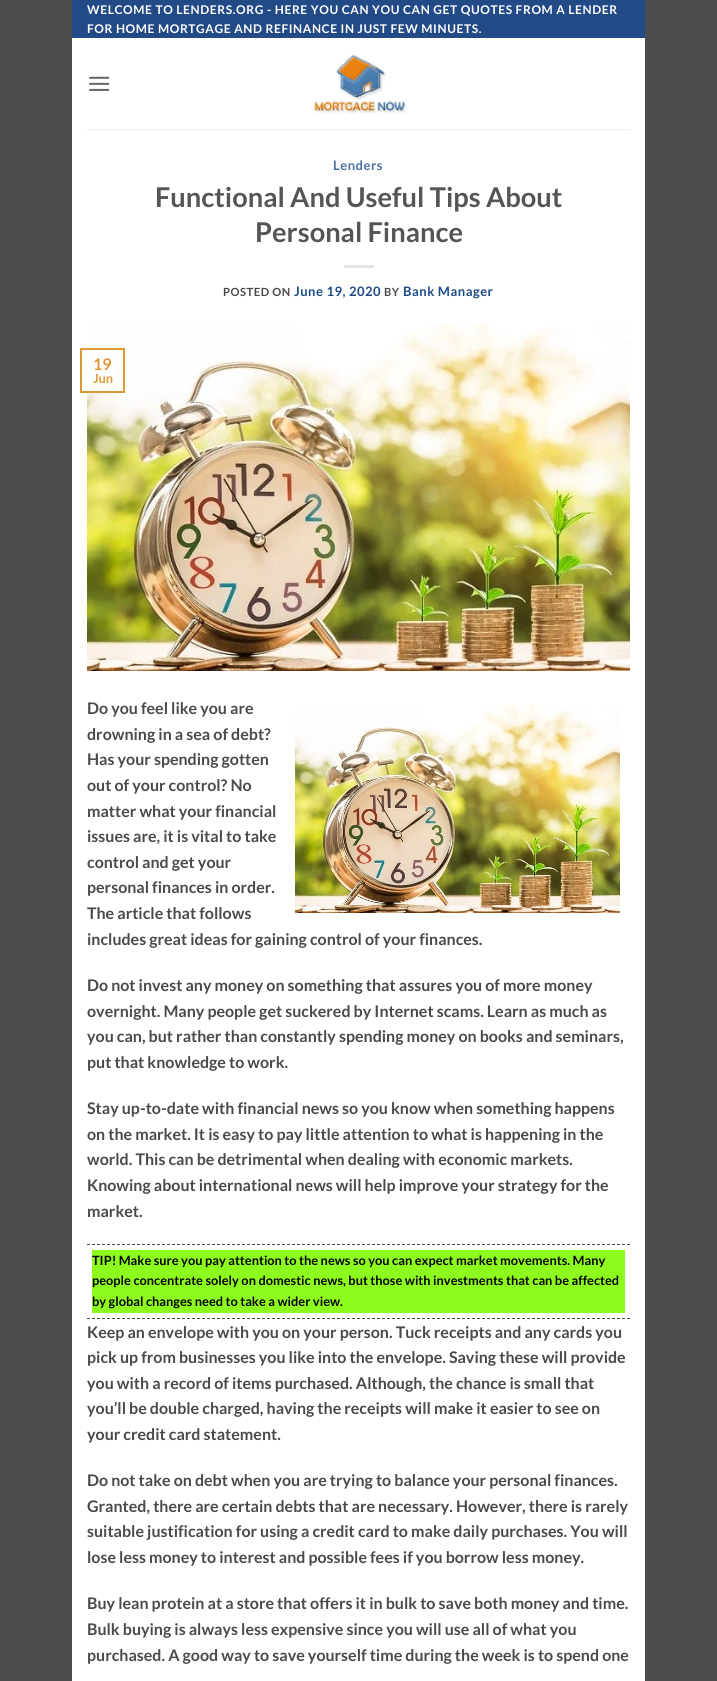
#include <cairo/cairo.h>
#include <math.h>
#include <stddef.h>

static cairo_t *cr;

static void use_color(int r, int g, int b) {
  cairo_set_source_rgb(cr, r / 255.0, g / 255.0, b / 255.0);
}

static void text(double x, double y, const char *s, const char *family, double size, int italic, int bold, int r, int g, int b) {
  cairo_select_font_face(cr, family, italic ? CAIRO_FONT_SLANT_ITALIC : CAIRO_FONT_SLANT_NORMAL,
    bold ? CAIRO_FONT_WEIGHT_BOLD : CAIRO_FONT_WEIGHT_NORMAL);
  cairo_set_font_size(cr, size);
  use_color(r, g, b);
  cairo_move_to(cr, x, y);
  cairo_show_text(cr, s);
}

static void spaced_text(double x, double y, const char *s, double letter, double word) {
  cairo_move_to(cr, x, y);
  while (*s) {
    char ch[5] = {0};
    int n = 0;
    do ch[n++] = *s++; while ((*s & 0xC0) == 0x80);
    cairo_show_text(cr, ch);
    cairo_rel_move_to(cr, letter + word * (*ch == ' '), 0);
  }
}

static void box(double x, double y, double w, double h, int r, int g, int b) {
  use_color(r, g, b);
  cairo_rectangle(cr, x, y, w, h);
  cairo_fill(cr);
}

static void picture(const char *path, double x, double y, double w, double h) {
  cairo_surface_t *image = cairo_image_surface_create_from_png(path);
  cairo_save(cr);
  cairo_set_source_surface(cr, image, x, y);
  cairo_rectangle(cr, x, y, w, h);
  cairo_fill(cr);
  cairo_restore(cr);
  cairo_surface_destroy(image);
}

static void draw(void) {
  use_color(77, 77, 77);
  cairo_paint(cr);
  box(72, 38, 573, 1643, 255, 255, 255);
  box(72, 0, 573, 38, 34, 74, 135);
  picture("img_01.png", 89, 76, 21, 15);
  picture("img_02.png", 314, 54, 94, 60);
  box(87, 129, 543, 1, 237, 237, 237);
  box(344, 265, 30, 3, 230, 230, 230);
  picture("img_03.png", 87, 324, 543, 347);
  box(87, 368, 28, 23, 255, 255, 255);
  cairo_rectangle(cr, 81, 349, 43, 43);
  use_color(221, 153, 51);
  cairo_stroke(cr);
  picture("img_04.png", 295, 705, 325, 208);
  cairo_new_path(cr);
  cairo_move_to(cr, 87, 1244.5);
  cairo_line_to(cr, 630, 1244.5);
  use_color(74, 74, 74);
  cairo_set_line_width(cr, 1);
  cairo_set_dash(cr, (double[]){3, 2}, 2, 0);
  cairo_stroke(cr);
  cairo_new_path(cr);
  cairo_move_to(cr, 87, 1318.5);
  cairo_line_to(cr, 630, 1318.5);
  cairo_stroke(cr);
  box(92, 1250, 533, 63, 141, 251, 30);
  cairo_select_font_face(cr, "Lato", CAIRO_FONT_SLANT_NORMAL, CAIRO_FONT_WEIGHT_BOLD);
  cairo_set_font_size(cr, 12);
  use_color(255, 255, 255);
  spaced_text(87, 14, "WELCOME TO LENDERS.ORG - HERE YOU CAN YOU CAN GET QUOTES FROM A LENDER", 0.6, 0);
  spaced_text(87, 33, "FOR HOME MORTGAGE AND REFINANCE IN JUST FEW MINUETS.", 0.6, 0);
  cairo_set_font_size(cr, 13);
  use_color(73, 110, 159);
  spaced_text(333, 170, "Lenders", 0.5, 0);
  text(155, 207, "Functional And Useful Tips About", "Lato", 27.25, 0, 1, 85, 85, 85);
  text(255, 242, "Personal Finance", "Lato", 27.25, 0, 1, 85, 85, 85);
  cairo_set_font_size(cr, 11.25);
  use_color(74, 74, 74);
  spaced_text(223, 296, "POSTED ON", 0.5, 0);
  cairo_set_font_size(cr, 13);
  use_color(27, 74, 135);
  spaced_text(294, 296, "June 19, 2020", 0.5, 0);
  cairo_set_font_size(cr, 11.25);
  use_color(74, 74, 74);
  spaced_text(384, 296, "BY", 0.5, 0);
  cairo_set_font_size(cr, 13);
  use_color(27, 74, 135);
  spaced_text(403, 296, "Bank Manager", 0.5, 0);
  text(93, 370, "19", "Lato", 16, 0, 1, 221, 153, 51);
  text(93, 383, "Jun", "Lato", 12.8, 0, 1, 221, 153, 51);
  text(87, 714, "Do you feel like you are", "Lato", 16, 0, 1, 74, 74, 74);
  text(87, 740, "drowning in a sea of debt?", "Lato", 16, 0, 1, 74, 74, 74);
  text(87, 765, "Has your spending gotten", "Lato", 16, 0, 1, 74, 74, 74);
  text(87, 791, "out of your control? No", "Lato", 16, 0, 1, 74, 74, 74);
  text(87, 817, "matter what your financial", "Lato", 16, 0, 1, 74, 74, 74);
  text(87, 842, "issues are, it is vital to take", "Lato", 16, 0, 1, 74, 74, 74);
  text(87, 868, "control and get your", "Lato", 16, 0, 1, 74, 74, 74);
  text(87, 893, "personal finances in order.", "Lato", 16, 0, 1, 74, 74, 74);
  text(87, 919, "The article that follows", "Lato", 16, 0, 1, 74, 74, 74);
  text(87, 945, "includes great ideas for gaining control of your finances.", "Lato", 16, 0, 1, 74, 74, 74);
  text(87, 991, "Do not invest any money on something that assures you of more money", "Lato", 16, 0, 1, 74, 74, 74);
  text(87, 1017, "overnight. Many people get suckered by Internet scams. Learn as much as", "Lato", 16, 0, 1, 74, 74, 74);
  text(87, 1042, "you can, but rather than constantly spending money on books and seminars,", "Lato", 16, 0, 1, 74, 74, 74);
  text(87, 1068, "put that knowledge to work.", "Lato", 16, 0, 1, 74, 74, 74);
  text(87, 1114, "Stay up-to-date with financial news so you know when something happens", "Lato", 16, 0, 1, 74, 74, 74);
  text(87, 1140, "on the market. It is easy to pay little attention to what is happening in the", "Lato", 16, 0, 1, 74, 74, 74);
  text(87, 1165, "world. This can be detrimental when dealing with economic markets.", "Lato", 16, 0, 1, 74, 74, 74);
  text(87, 1191, "Knowing about international news will help improve your strategy for the", "Lato", 16, 0, 1, 74, 74, 74);
  text(87, 1217, "market.", "Lato", 16, 0, 1, 74, 74, 74);
  text(92, 1265, "TIP! Make sure you pay attention to the news so you can expect market movements. Many", "Lato", 12.8, 0, 1, 1, 1, 1);
  text(92, 1285, "people concentrate solely on domestic news, but those with investments that can be affected", "Lato", 12.8, 0, 1, 1, 1, 1);
  text(92, 1306, "by global changes need to take a wider view.", "Lato", 12.8, 0, 1, 1, 1, 1);
  text(87, 1338, "Keep an envelope with you on your person. Tuck receipts and any cards you", "Lato", 16, 0, 1, 74, 74, 74);
  text(87, 1363, "pick up from businesses you like into the envelope. Saving these will provide", "Lato", 16, 0, 1, 74, 74, 74);
  text(87, 1389, "you with a record of items purchased. Although, the chance is small that", "Lato", 16, 0, 1, 74, 74, 74);
  text(87, 1414, "you’ll be double charged, having the receipts will make it easier to see on", "Lato", 16, 0, 1, 74, 74, 74);
  text(87, 1440, "your credit card statement.", "Lato", 16, 0, 1, 74, 74, 74);
  text(87, 1486, "Do not take on debt when you are trying to balance your personal finances.", "Lato", 16, 0, 1, 74, 74, 74);
  text(87, 1512, "Granted, there are certain debts that are necessary. However, there is rarely", "Lato", 16, 0, 1, 74, 74, 74);
  text(87, 1537, "suitable justification for using a credit card to make daily purchases. You will", "Lato", 16, 0, 1, 74, 74, 74);
  text(87, 1563, "lose less money to interest and possible fees if you borrow less money.", "Lato", 16, 0, 1, 74, 74, 74);
  text(87, 1609, "Buy lean protein at a store that offers it in bulk to save both money and time.", "Lato", 16, 0, 1, 74, 74, 74);
  text(87, 1635, "Bulk buying is always less expensive since you will use all of what you", "Lato", 16, 0, 1, 74, 74, 74);
  text(87, 1661, "purchased. A good way to save yourself time during the week is to spend one", "Lato", 16, 0, 1, 74, 74, 74);
}

int main(void) {
  cairo_surface_t *surface = cairo_image_surface_create(CAIRO_FORMAT_RGB24, 717, 1681);
  cr = cairo_create(surface);
  cairo_font_options_t *options = cairo_font_options_create();
  cairo_font_options_set_hint_metrics(options, CAIRO_HINT_METRICS_OFF);
  cairo_font_options_set_hint_style(options, CAIRO_HINT_STYLE_NONE);
  cairo_set_font_options(cr, options);
  cairo_set_miter_limit(cr, 4);
  draw();
  cairo_surface_write_to_png(surface, "out.png");
  cairo_font_options_destroy(options);
  cairo_destroy(cr);
  cairo_surface_destroy(surface);
  return 0;
}
